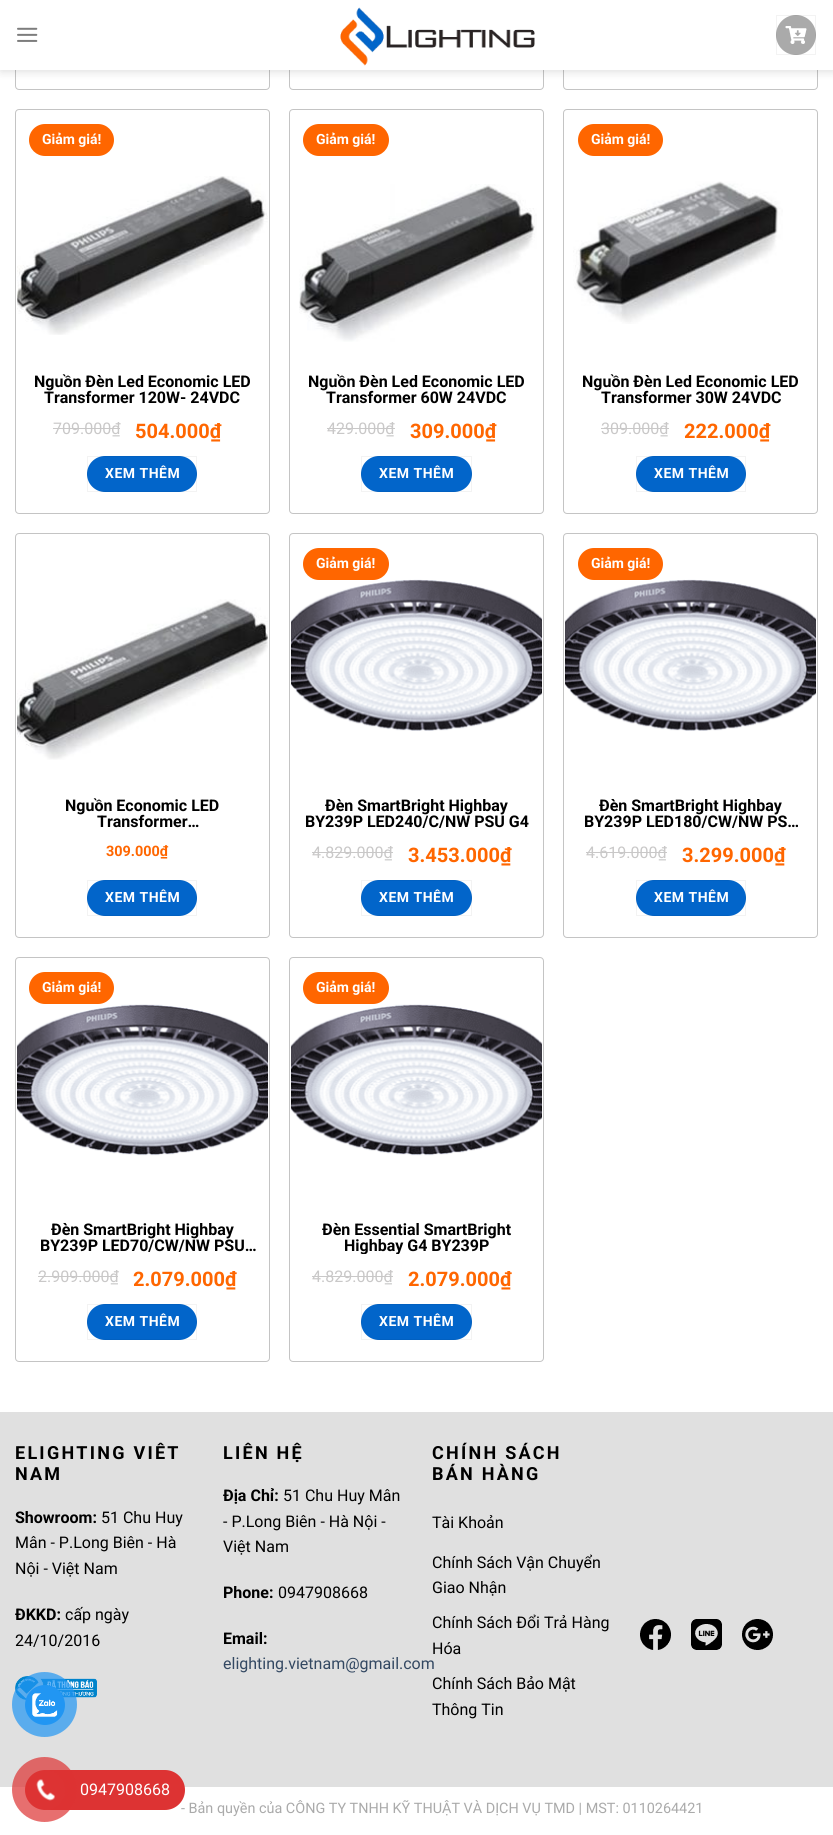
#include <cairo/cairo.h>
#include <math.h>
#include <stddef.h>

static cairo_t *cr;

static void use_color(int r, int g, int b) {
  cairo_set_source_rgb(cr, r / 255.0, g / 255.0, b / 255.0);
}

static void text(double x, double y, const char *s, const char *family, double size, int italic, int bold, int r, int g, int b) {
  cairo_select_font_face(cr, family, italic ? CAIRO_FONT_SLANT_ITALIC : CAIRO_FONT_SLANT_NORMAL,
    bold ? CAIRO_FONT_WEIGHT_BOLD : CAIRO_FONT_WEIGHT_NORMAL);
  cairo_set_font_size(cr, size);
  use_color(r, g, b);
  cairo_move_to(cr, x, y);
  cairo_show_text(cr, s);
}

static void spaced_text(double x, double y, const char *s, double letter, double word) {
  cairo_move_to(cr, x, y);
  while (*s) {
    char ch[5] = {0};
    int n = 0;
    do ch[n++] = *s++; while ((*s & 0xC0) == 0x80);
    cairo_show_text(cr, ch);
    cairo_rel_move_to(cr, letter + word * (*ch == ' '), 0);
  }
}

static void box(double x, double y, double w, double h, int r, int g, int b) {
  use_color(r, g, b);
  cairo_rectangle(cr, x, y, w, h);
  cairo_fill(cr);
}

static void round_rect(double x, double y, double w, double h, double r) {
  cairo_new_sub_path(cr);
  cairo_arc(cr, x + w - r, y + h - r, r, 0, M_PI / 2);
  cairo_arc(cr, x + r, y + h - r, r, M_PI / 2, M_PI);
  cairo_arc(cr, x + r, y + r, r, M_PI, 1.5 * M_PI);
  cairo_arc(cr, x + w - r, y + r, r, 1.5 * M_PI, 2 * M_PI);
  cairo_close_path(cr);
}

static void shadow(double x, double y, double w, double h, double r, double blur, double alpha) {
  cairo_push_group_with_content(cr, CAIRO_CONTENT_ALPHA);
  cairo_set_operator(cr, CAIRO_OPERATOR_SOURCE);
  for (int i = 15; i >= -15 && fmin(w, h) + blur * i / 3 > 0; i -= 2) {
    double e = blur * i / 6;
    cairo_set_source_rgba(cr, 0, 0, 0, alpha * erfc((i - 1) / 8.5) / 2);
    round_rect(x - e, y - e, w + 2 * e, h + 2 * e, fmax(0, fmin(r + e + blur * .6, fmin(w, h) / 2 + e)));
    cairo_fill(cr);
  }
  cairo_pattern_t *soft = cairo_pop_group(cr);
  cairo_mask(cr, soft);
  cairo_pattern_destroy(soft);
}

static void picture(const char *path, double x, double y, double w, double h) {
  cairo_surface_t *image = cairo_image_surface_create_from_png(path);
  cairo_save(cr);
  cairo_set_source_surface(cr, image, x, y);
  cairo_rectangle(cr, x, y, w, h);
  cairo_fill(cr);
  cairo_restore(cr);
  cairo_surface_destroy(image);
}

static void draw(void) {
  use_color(255, 255, 255);
  cairo_paint(cr);
  round_rect(15.5, -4.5, 254, 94, 3.5);
  use_color(196, 196, 196);
  cairo_set_line_width(cr, 1);
  cairo_stroke(cr);
  round_rect(289.5, -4.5, 254, 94, 3.5);
  cairo_stroke(cr);
  round_rect(563.5, -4.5, 254, 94, 3.5);
  cairo_stroke(cr);
  use_color(0, 0, 0);
  shadow(1, 1, 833, 70, 0, 5, 0.15);
  box(0, 0, 833, 70, 255, 255, 255);
  picture("img_01.png", 17, 27, 21, 15);
  picture("img_02.png", 340, 7, 195, 59);
  use_color(170, 170, 170);
  cairo_arc(cr, 796, 35, 20, 0, 2 * M_PI);
  cairo_fill(cr);
  cairo_rectangle(cr, 776.5, 15.5, 39, 39);
  cairo_set_source_rgba(cr, 0, 0, 0, 0.05);
  cairo_stroke(cr);
  picture("img_03.png", 785, 26, 22, 18);
  round_rect(15.5, 109.5, 254, 404, 3.5);
  use_color(196, 196, 196);
  cairo_stroke(cr);
  use_color(255, 102, 0);
  round_rect(29, 124, 85, 32, 16);
  cairo_fill(cr);
  picture("img_04.png", 17, 176, 251, 159);
  box(53, 428, 67, 1, 201, 200, 200);
  use_color(2, 101, 202);
  round_rect(87, 456, 110, 36, 18);
  cairo_fill(cr);
  cairo_rectangle(cr, 87.5, 456.5, 109, 35);
  cairo_set_source_rgba(cr, 0, 0, 0, 0.05);
  cairo_stroke(cr);
  round_rect(289.5, 109.5, 254, 404, 3.5);
  use_color(196, 196, 196);
  cairo_stroke(cr);
  use_color(255, 102, 0);
  round_rect(303, 124, 86, 32, 16);
  cairo_fill(cr);
  picture("img_05.png", 299, 184, 238, 158);
  box(327, 428, 68, 1, 201, 200, 200);
  use_color(2, 101, 202);
  round_rect(361, 456, 111, 36, 18);
  cairo_fill(cr);
  cairo_rectangle(cr, 361.5, 456.5, 110, 35);
  cairo_set_source_rgba(cr, 0, 0, 0, 0.05);
  cairo_stroke(cr);
  round_rect(563.5, 109.5, 254, 404, 3.5);
  use_color(196, 196, 196);
  cairo_stroke(cr);
  use_color(255, 102, 0);
  round_rect(578, 124, 85, 32, 16);
  cairo_fill(cr);
  picture("img_06.png", 573, 181, 210, 143);
  box(601, 428, 68, 1, 201, 200, 200);
  use_color(2, 101, 202);
  round_rect(636, 456, 110, 36, 18);
  cairo_fill(cr);
  cairo_rectangle(cr, 636.5, 456.5, 109, 35);
  cairo_set_source_rgba(cr, 0, 0, 0, 0.05);
  cairo_stroke(cr);
  round_rect(15.5, 533.5, 254, 404, 3.5);
  use_color(196, 196, 196);
  cairo_stroke(cr);
  picture("img_07.png", 17, 599, 251, 161);
  use_color(2, 101, 202);
  round_rect(87, 880, 110, 36, 18);
  cairo_fill(cr);
  cairo_rectangle(cr, 87.5, 880.5, 109, 35);
  cairo_set_source_rgba(cr, 0, 0, 0, 0.05);
  cairo_stroke(cr);
  round_rect(289.5, 533.5, 254, 404, 3.5);
  use_color(196, 196, 196);
  cairo_stroke(cr);
  picture("img_08.png", 291, 579, 251, 152);
  use_color(255, 102, 0);
  round_rect(303, 548, 86, 32, 16);
  cairo_fill(cr);
  box(312, 852, 81, 1, 201, 200, 200);
  use_color(2, 101, 202);
  round_rect(361, 880, 111, 36, 18);
  cairo_fill(cr);
  cairo_rectangle(cr, 361.5, 880.5, 110, 35);
  cairo_set_source_rgba(cr, 0, 0, 0, 0.05);
  cairo_stroke(cr);
  round_rect(563.5, 533.5, 254, 404, 3.5);
  use_color(196, 196, 196);
  cairo_stroke(cr);
  picture("img_08.png", 565, 579, 251, 152);
  use_color(255, 102, 0);
  round_rect(578, 548, 85, 32, 16);
  cairo_fill(cr);
  box(586, 852, 81, 1, 201, 200, 200);
  use_color(2, 101, 202);
  round_rect(636, 880, 110, 36, 18);
  cairo_fill(cr);
  cairo_rectangle(cr, 636.5, 880.5, 109, 35);
  cairo_set_source_rgba(cr, 0, 0, 0, 0.05);
  cairo_stroke(cr);
  round_rect(15.5, 957.5, 254, 404, 3.5);
  use_color(196, 196, 196);
  cairo_stroke(cr);
  use_color(255, 102, 0);
  round_rect(29, 972, 85, 32, 16);
  cairo_fill(cr);
  picture("img_09.png", 17, 1004, 251, 152);
  box(38, 1276, 80, 1, 201, 200, 200);
  use_color(2, 101, 202);
  round_rect(87, 1304, 110, 36, 18);
  cairo_fill(cr);
  cairo_rectangle(cr, 87.5, 1304.5, 109, 35);
  cairo_set_source_rgba(cr, 0, 0, 0, 0.05);
  cairo_stroke(cr);
  round_rect(289.5, 957.5, 254, 404, 3.5);
  use_color(196, 196, 196);
  cairo_stroke(cr);
  use_color(255, 102, 0);
  round_rect(303, 972, 86, 32, 16);
  cairo_fill(cr);
  picture("img_09.png", 291, 1004, 251, 152);
  box(312, 1276, 81, 1, 201, 200, 200);
  use_color(2, 101, 202);
  round_rect(361, 1304, 111, 36, 18);
  cairo_fill(cr);
  cairo_rectangle(cr, 361.5, 1304.5, 110, 35);
  cairo_set_source_rgba(cr, 0, 0, 0, 0.05);
  cairo_stroke(cr);
  box(0, 1412, 833, 375, 224, 224, 224);
  picture("img_10.png", 15, 1676, 82, 24);
  picture("img_11.png", 640, 1619, 31, 31);
  picture("img_12.png", 691, 1619, 31, 31);
  picture("img_13.png", 742, 1619, 31, 31);
  cairo_set_source_rgba(cr, 0.129, 0.588, 0.953, 0.7);
  cairo_arc(cr, 44.5, 1704.5, 32.5, 0, 2 * M_PI);
  cairo_fill(cr);
  use_color(33, 150, 243);
  cairo_arc(cr, 45, 1705, 20, 0, 2 * M_PI);
  cairo_fill(cr);
  picture("img_14.png", 32, 1693, 26, 24);
  text(42, 144, "Giảm giá!", "Roboto", 14, 0, 1, 255, 255, 255);
  text(34, 387, "Nguồn Đèn Led Economic LED", "Roboto", 16, 0, 1, 0, 0, 0);
  text(44, 403, "Transformer 120W- 24VDC", "Roboto", 16, 0, 1, 0, 0, 0);
  text(53, 434, "709.000₫", "Roboto", 16, 0, 0, 201, 200, 200);
  text(135, 438, "504.000₫", "Roboto", 20, 0, 1, 255, 102, 0);
  cairo_set_font_size(cr, 14);
  use_color(255, 255, 255);
  spaced_text(105, 478, "XEM THÊM", 0.5, 0);
  text(316, 144, "Giảm giá!", "Roboto", 14, 0, 1, 255, 255, 255);
  text(308, 387, "Nguồn Đèn Led Economic LED", "Roboto", 16, 0, 1, 0, 0, 0);
  text(326, 403, "Transformer 60W 24VDC", "Roboto", 16, 0, 1, 0, 0, 0);
  text(327, 434, "429.000₫", "Roboto", 16, 0, 0, 201, 200, 200);
  text(410, 438, "309.000₫", "Roboto", 20, 0, 1, 255, 102, 0);
  cairo_set_font_size(cr, 14);
  use_color(255, 255, 255);
  spaced_text(379, 478, "XEM THÊM", 0.5, 0);
  text(591, 144, "Giảm giá!", "Roboto", 14, 0, 1, 255, 255, 255);
  text(582, 387, "Nguồn Đèn Led Economic LED", "Roboto", 16, 0, 1, 0, 0, 0);
  text(601, 403, "Transformer 30W 24VDC", "Roboto", 16, 0, 1, 0, 0, 0);
  text(601, 434, "309.000₫", "Roboto", 16, 0, 0, 201, 200, 200);
  text(684, 438, "222.000₫", "Roboto", 20, 0, 1, 255, 102, 0);
  cairo_set_font_size(cr, 14);
  use_color(255, 255, 255);
  spaced_text(654, 478, "XEM THÊM", 0.5, 0);
  text(65, 811, "Nguồn Economic LED", "Roboto", 16, 0, 1, 0, 0, 0);
  text(97, 827, "Transformer…", "Roboto", 16, 0, 1, 0, 0, 0);
  text(106, 856, "309.000₫", "Roboto", 14.4, 0, 1, 255, 102, 0);
  cairo_set_font_size(cr, 14);
  use_color(255, 255, 255);
  spaced_text(105, 902, "XEM THÊM", 0.5, 0);
  text(316, 568, "Giảm giá!", "Roboto", 14, 0, 1, 255, 255, 255);
  text(325, 811, "Đèn SmartBright Highbay", "Roboto", 16, 0, 1, 0, 0, 0);
  text(305, 827, "BY239P LED240/C/NW PSU G4", "Roboto", 16, 0, 1, 0, 0, 0);
  text(312, 858, "4.829.000₫", "Roboto", 16, 0, 0, 201, 200, 200);
  text(408, 862, "3.453.000₫", "Roboto", 20, 0, 1, 255, 102, 0);
  cairo_set_font_size(cr, 14);
  use_color(255, 255, 255);
  spaced_text(379, 902, "XEM THÊM", 0.5, 0);
  text(591, 568, "Giảm giá!", "Roboto", 14, 0, 1, 255, 255, 255);
  text(599, 811, "Đèn SmartBright Highbay", "Roboto", 16, 0, 1, 0, 0, 0);
  text(584, 827, "BY239P LED180/CW/NW PS…", "Roboto", 16, 0, 1, 0, 0, 0);
  text(586, 858, "4.619.000₫", "Roboto", 16, 0, 0, 201, 200, 200);
  text(682, 862, "3.299.000₫", "Roboto", 20, 0, 1, 255, 102, 0);
  cairo_set_font_size(cr, 14);
  use_color(255, 255, 255);
  spaced_text(654, 902, "XEM THÊM", 0.5, 0);
  text(42, 992, "Giảm giá!", "Roboto", 14, 0, 1, 255, 255, 255);
  text(51, 1235, "Đèn SmartBright Highbay", "Roboto", 16, 0, 1, 0, 0, 0);
  text(40, 1251, "BY239P LED70/CW/NW PSU…", "Roboto", 16, 0, 1, 0, 0, 0);
  text(38, 1282, "2.909.000₫", "Roboto", 16, 0, 0, 201, 200, 200);
  text(133, 1286, "2.079.000₫", "Roboto", 20, 0, 1, 255, 102, 0);
  cairo_set_font_size(cr, 14);
  use_color(255, 255, 255);
  spaced_text(105, 1326, "XEM THÊM", 0.5, 0);
  text(316, 992, "Giảm giá!", "Roboto", 14, 0, 1, 255, 255, 255);
  text(322, 1235, "Đèn Essential SmartBright", "Roboto", 16, 0, 1, 0, 0, 0);
  cairo_save(cr);
  cairo_rectangle(cr, 301, 1222, 231, 32);
  cairo_clip(cr);
  text(344, 1251, "Highbay G4 BY239P", "Roboto", 16, 0, 1, 0, 0, 0);
  cairo_restore(cr);
  text(312, 1282, "4.829.000₫", "Roboto", 16, 0, 0, 201, 200, 200);
  text(408, 1286, "2.079.000₫", "Roboto", 20, 0, 1, 255, 102, 0);
  cairo_set_font_size(cr, 14);
  use_color(255, 255, 255);
  spaced_text(379, 1326, "XEM THÊM", 0.5, 0);
  cairo_set_font_size(cr, 18);
  use_color(0, 0, 0);
  spaced_text(15, 1459, "ELIGHTING VIÊT", 2.25, 0);
  spaced_text(15, 1480, "NAM", 2.25, 0);
  text(15, 1523, "Showroom:", "Roboto", 16, 0, 1, 0, 0, 0);
  text(101, 1523, "51 Chu Huy", "Roboto", 16, 0, 0, 0, 0, 0);
  text(15, 1548, "Mân - P.Long Biên - Hà", "Roboto", 16, 0, 0, 0, 0, 0);
  text(15, 1574, "Nội - Việt Nam", "Roboto", 16, 0, 0, 0, 0, 0);
  text(15, 1620, "ĐKKD:", "Roboto", 16, 0, 1, 0, 0, 0);
  text(65, 1620, "cấp ngày", "Roboto", 16, 0, 0, 0, 0, 0);
  text(15, 1646, "24/10/2016", "Roboto", 16, 0, 0, 0, 0, 0);
  cairo_select_font_face(cr, "Roboto", CAIRO_FONT_SLANT_NORMAL, CAIRO_FONT_WEIGHT_BOLD);
  cairo_set_font_size(cr, 18);
  spaced_text(223, 1459, "LIÊN HỆ", 2.25, 0);
  text(223, 1501, "Địa Chỉ:", "Roboto", 16, 0, 1, 0, 0, 0);
  text(283, 1501, "51 Chu Huy Mân", "Roboto", 16, 0, 0, 0, 0, 0);
  text(223, 1527, "- P.Long Biên - Hà Nội -", "Roboto", 16, 0, 0, 0, 0, 0);
  text(223, 1552, "Việt Nam", "Roboto", 16, 0, 0, 0, 0, 0);
  text(223, 1598, "Phone:", "Roboto", 16, 0, 1, 0, 0, 0);
  text(278, 1598, "0947908668", "Roboto", 16, 0, 0, 0, 0, 0);
  text(223, 1644, "Email:", "Roboto", 16, 0, 1, 0, 0, 0);
  text(223, 1669, "elighting.vietnam@gmail.com", "Roboto", 16, 0, 0, 51, 72, 98);
  cairo_select_font_face(cr, "Roboto", CAIRO_FONT_SLANT_NORMAL, CAIRO_FONT_WEIGHT_BOLD);
  cairo_set_font_size(cr, 18);
  use_color(0, 0, 0);
  spaced_text(432, 1459, "CHÍNH SÁCH", 2.25, 0);
  spaced_text(432, 1480, "BÁN HÀNG", 2.25, 0);
  text(432, 1528, "Tài Khoản", "Roboto", 16, 0, 0, 0, 0, 0);
  text(432, 1568, "Chính Sách Vận Chuyển", "Roboto", 16, 0, 0, 0, 0, 0);
  text(432, 1593, "Giao Nhận", "Roboto", 16, 0, 0, 0, 0, 0);
  text(432, 1628, "Chính Sách Đổi Trả Hàng", "Roboto", 16, 0, 0, 0, 0, 0);
  text(432, 1654, "Hóa", "Roboto", 16, 0, 0, 0, 0, 0);
  text(432, 1689, "Chính Sách Bảo Mật", "Roboto", 16, 0, 0, 0, 0, 0);
  text(432, 1715, "Thông Tin", "Roboto", 16, 0, 0, 0, 0, 0);
  text(181, 1813, "- Bản quyền của CÔNG TY TNHH KỸ THUẬT VÀ DỊCH VỤ TMD | MST: 0110264421", "Roboto", 14.4, 0, 0, 170, 170, 170);
  use_color(221, 51, 51);
  round_rect(30, 1770, 155, 40, 20);
  cairo_fill(cr);
  cairo_set_source_rgba(cr, 0.867, 0.2, 0.2, 0.7);
  cairo_arc(cr, 44.5, 1789.5, 32.5, 0, 2 * M_PI);
  cairo_fill(cr);
  use_color(221, 51, 51);
  cairo_arc(cr, 45, 1790, 20, 0, 2 * M_PI);
  cairo_fill(cr);
  picture("img_15.png", 36, 1779, 19, 22);
  text(80, 1795, "0947908668", "Roboto", 16, 0, 0, 255, 255, 255);
}

int main(void) {
  cairo_surface_t *surface = cairo_image_surface_create(CAIRO_FORMAT_RGB24, 833, 1835);
  cr = cairo_create(surface);
  cairo_font_options_t *options = cairo_font_options_create();
  cairo_font_options_set_hint_metrics(options, CAIRO_HINT_METRICS_OFF);
  cairo_font_options_set_hint_style(options, CAIRO_HINT_STYLE_NONE);
  cairo_set_font_options(cr, options);
  cairo_set_miter_limit(cr, 4);
  draw();
  cairo_surface_write_to_png(surface, "out.png");
  cairo_font_options_destroy(options);
  cairo_destroy(cr);
  cairo_surface_destroy(surface);
  return 0;
}
